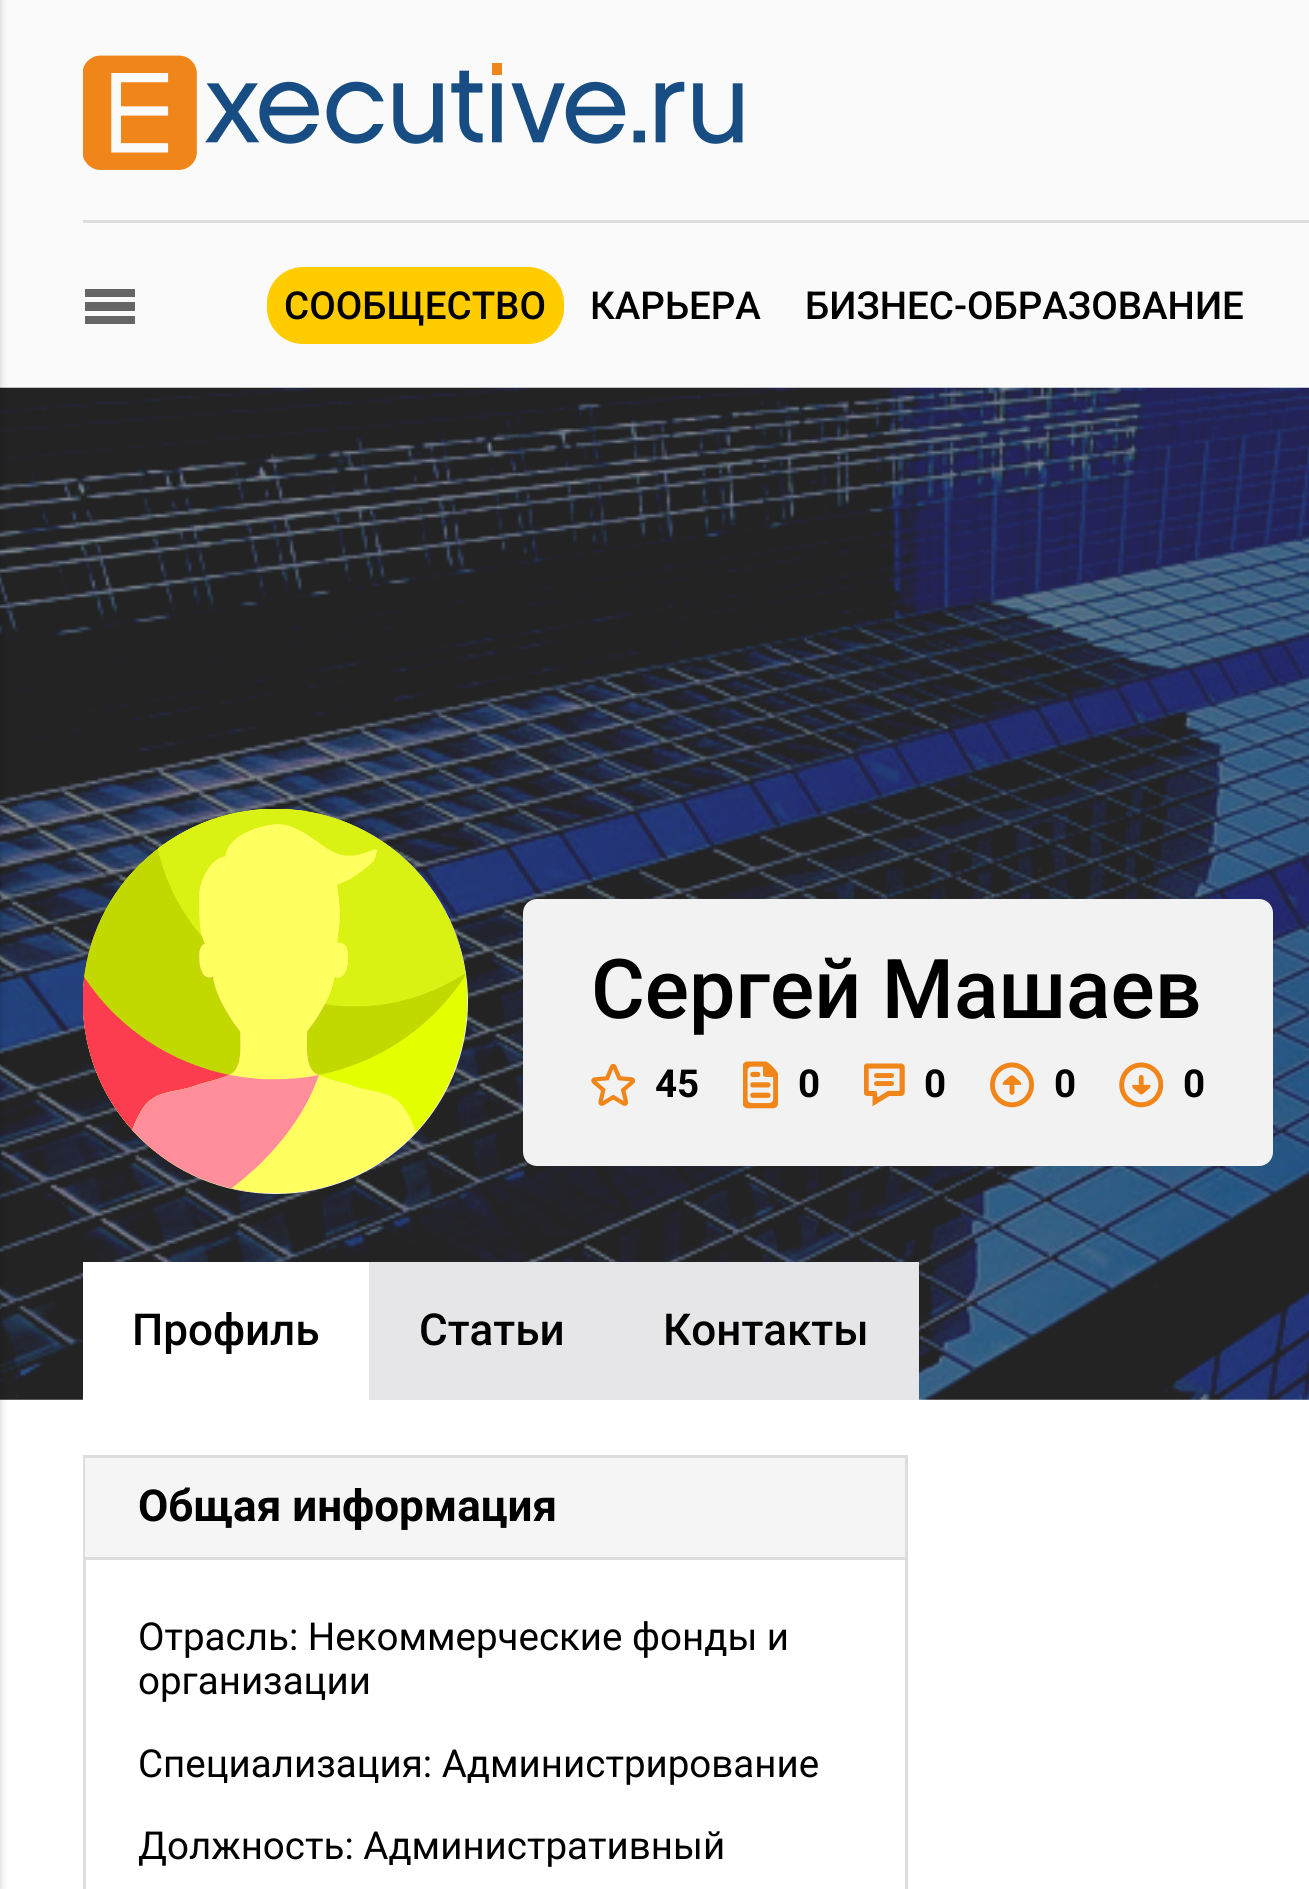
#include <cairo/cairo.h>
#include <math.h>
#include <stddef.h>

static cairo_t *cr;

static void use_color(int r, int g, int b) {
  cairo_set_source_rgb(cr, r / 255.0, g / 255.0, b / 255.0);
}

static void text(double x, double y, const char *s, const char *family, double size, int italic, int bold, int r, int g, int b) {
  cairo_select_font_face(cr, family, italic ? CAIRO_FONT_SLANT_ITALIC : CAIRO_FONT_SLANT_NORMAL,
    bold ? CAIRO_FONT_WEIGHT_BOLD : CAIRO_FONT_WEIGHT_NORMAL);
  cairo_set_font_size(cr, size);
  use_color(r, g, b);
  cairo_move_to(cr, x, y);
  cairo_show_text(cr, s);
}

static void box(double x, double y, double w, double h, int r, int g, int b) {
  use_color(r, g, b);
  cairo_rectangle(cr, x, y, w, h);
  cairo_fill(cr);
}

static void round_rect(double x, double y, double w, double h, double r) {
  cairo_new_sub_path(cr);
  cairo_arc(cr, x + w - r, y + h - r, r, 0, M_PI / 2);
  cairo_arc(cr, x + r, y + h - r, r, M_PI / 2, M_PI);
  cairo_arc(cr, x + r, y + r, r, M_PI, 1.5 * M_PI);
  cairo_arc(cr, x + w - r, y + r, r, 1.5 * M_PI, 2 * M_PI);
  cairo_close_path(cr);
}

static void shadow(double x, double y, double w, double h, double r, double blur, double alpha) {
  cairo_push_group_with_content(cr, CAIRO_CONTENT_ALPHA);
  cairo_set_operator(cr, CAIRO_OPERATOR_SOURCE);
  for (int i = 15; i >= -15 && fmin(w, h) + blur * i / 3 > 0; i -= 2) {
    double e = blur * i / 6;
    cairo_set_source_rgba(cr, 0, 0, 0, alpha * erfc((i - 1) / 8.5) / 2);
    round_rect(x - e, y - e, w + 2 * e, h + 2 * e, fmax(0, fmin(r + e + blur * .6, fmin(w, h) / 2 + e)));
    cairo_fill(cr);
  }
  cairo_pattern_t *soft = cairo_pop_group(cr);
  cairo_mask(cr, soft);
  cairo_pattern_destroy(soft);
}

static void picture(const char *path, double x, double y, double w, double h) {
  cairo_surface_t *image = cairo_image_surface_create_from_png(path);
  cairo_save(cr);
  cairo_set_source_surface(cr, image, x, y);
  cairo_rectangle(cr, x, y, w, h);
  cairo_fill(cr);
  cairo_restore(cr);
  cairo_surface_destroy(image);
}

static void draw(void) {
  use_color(255, 255, 255);
  cairo_paint(cr);
  box(0, 0, 1309, 388, 250, 250, 250);
  picture("img_02.png", 0, 387, 1309, 1013);
  use_color(0, 0, 0);
  shadow(-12, 0, 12, 1889, 0, 4, 0.2);
  picture("img_01.png", 83, 55, 660, 115);
  box(83, 220, 1226, 3, 221, 221, 221);
  box(85, 289, 50, 8, 102, 102, 102);
  box(85, 302, 50, 9, 102, 102, 102);
  box(85, 316, 50, 8, 102, 102, 102);
  use_color(255, 204, 0);
  round_rect(267, 267, 297, 77, 36);
  cairo_fill(cr);
  use_color(242, 242, 242);
  cairo_arc(cr, 275.5, 1001.5, 192.5, 0, 2 * M_PI);
  cairo_fill(cr);
  picture("img_03.png", 83, 809, 385, 385);
  round_rect(523, 899, 750, 267, 14);
  cairo_fill(cr);
  picture("img_04.png", 591, 1063, 44, 43);
  picture("img_05.png", 743, 1061, 35, 48);
  picture("img_06.png", 864, 1063, 41, 44);
  picture("img_07.png", 990, 1062, 44, 46);
  picture("img_08.png", 1119, 1062, 44, 46);
  box(83, 1262, 286, 138, 255, 255, 255);
  box(369, 1262, 550, 138, 230, 230, 232);
  cairo_rectangle(cr, 84.5, 1456.5, 822, 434);
  use_color(221, 221, 221);
  cairo_set_line_width(cr, 3);
  cairo_stroke(cr);
  box(85, 1458, 820, 99, 245, 245, 245);
  box(85, 1557, 820, 3, 221, 221, 221);
  text(284, 319, "СООБЩЕСТВО", "Roboto Medium", 38.5, 0, 0, 0, 0, 0);
  text(590, 319, "КАРЬЕРА", "Roboto Medium", 38.5, 0, 0, 0, 0, 0);
  text(805, 319, "БИЗНЕС-ОБРАЗОВАНИЕ", "Roboto Medium", 38.5, 0, 0, 0, 0, 0);
  text(591, 1018, "Сергей Машаев", "Roboto Medium", 82.5, 0, 0, 0, 0, 0);
  text(655, 1097, "45", "Roboto", 38.5, 0, 1, 0, 0, 0);
  text(798, 1097, "0", "Roboto", 38.5, 0, 1, 0, 0, 0);
  text(924, 1097, "0", "Roboto", 38.5, 0, 1, 0, 0, 0);
  text(1054, 1097, "0", "Roboto", 38.5, 0, 1, 0, 0, 0);
  text(1183, 1097, "0", "Roboto", 38.5, 0, 1, 0, 0, 0);
  text(132, 1345, "Профиль", "Roboto Medium", 44, 0, 0, 0, 0, 0);
  text(419, 1345, "Cтатьи", "Roboto Medium", 44, 0, 0, 0, 0, 0);
  text(663, 1345, "Контакты", "Roboto Medium", 44, 0, 0, 0, 0, 0);
  text(138, 1521, "Общая информация", "Roboto", 44, 0, 1, 0, 0, 0);
  text(138, 1650, "Отрасль: Некоммерческие фонды и", "Roboto", 38.5, 0, 0, 0, 0, 0);
  text(138, 1694, "организации", "Roboto", 38.5, 0, 0, 0, 0, 0);
  text(138, 1777, "Специализация: Администрирование", "Roboto", 38.5, 0, 0, 0, 0, 0);
  text(138, 1859, "Должность: Административный", "Roboto", 38.5, 0, 0, 0, 0, 0);
}

int main(void) {
  cairo_surface_t *surface = cairo_image_surface_create(CAIRO_FORMAT_RGB24, 1309, 1889);
  cr = cairo_create(surface);
  cairo_font_options_t *options = cairo_font_options_create();
  cairo_font_options_set_hint_metrics(options, CAIRO_HINT_METRICS_OFF);
  cairo_font_options_set_hint_style(options, CAIRO_HINT_STYLE_NONE);
  cairo_set_font_options(cr, options);
  cairo_set_miter_limit(cr, 4);
  draw();
  cairo_surface_write_to_png(surface, "out.png");
  cairo_font_options_destroy(options);
  cairo_destroy(cr);
  cairo_surface_destroy(surface);
  return 0;
}
